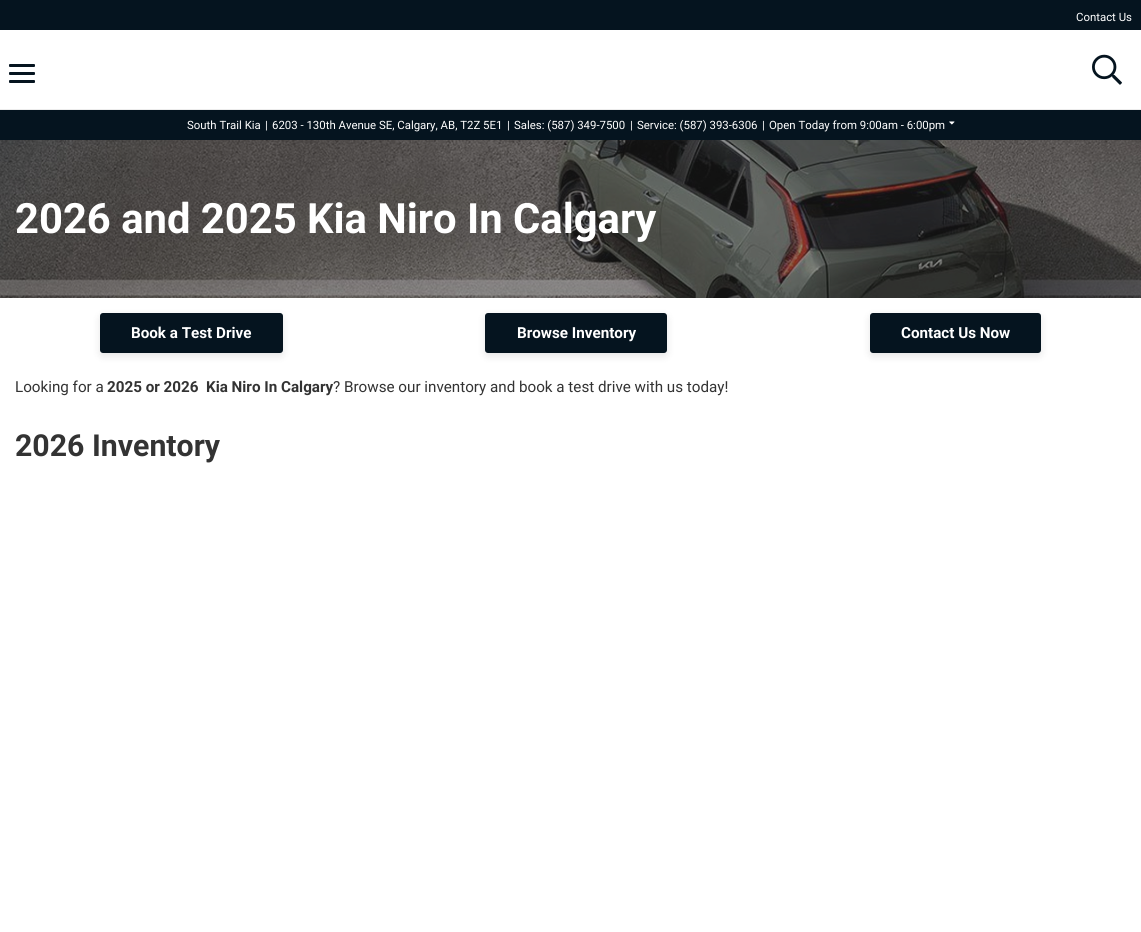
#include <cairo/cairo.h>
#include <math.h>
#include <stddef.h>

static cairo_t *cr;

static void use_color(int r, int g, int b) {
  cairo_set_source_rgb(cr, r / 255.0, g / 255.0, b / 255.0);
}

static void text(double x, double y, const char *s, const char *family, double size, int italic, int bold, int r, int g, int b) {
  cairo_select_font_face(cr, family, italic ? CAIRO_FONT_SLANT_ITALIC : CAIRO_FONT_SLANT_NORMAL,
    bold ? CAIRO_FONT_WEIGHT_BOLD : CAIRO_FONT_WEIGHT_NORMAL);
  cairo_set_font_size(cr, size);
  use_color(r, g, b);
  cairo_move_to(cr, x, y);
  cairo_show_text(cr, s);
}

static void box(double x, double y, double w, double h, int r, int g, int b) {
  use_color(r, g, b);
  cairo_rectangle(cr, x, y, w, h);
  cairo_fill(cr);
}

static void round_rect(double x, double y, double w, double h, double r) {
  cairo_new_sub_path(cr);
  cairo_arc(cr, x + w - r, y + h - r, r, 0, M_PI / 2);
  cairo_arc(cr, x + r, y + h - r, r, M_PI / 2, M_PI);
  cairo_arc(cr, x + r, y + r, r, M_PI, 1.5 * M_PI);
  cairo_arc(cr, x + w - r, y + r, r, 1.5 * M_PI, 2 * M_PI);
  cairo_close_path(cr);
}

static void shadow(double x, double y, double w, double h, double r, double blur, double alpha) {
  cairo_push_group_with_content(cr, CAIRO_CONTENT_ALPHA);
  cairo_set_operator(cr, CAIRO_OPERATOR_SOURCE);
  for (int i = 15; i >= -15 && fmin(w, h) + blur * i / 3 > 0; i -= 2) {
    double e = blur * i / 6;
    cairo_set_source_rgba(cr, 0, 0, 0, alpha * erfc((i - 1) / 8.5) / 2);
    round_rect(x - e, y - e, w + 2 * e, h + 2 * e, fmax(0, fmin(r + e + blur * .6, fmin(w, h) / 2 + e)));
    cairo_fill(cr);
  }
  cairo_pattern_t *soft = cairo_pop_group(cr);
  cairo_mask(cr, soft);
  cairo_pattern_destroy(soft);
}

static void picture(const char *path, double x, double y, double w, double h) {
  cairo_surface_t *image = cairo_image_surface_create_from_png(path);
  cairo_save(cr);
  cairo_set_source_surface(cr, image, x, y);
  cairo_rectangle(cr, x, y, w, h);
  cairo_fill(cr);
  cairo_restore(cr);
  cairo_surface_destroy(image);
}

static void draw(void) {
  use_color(255, 255, 255);
  cairo_paint(cr);
  box(0, 0, 1141, 140, 5, 20, 31);
  box(0, 30, 1141, 79, 255, 255, 255);
  box(0, 109, 1141, 1, 236, 236, 236);
  use_color(5, 20, 31);
  round_rect(9, 72, 26, 3, 1);
  cairo_fill(cr);
  round_rect(9, 64, 26, 3, 1);
  cairo_fill(cr);
  round_rect(9, 80, 26, 3, 1);
  cairo_fill(cr);
  picture("img_01.png", 1092, 54, 30, 31);
  picture("img_02.png", 949, 121, 6, 4);
  picture("img_03.png", 0, 140, 1141, 158);
  use_color(0, 0, 0);
  shadow(100, 316, 183, 40, 3, 4, 0.1);
  use_color(5, 20, 31);
  round_rect(100, 313, 183, 40, 3);
  cairo_fill(cr);
  use_color(0, 0, 0);
  shadow(485, 316, 182, 40, 3, 4, 0.1);
  use_color(5, 20, 31);
  round_rect(485, 313, 182, 40, 3);
  cairo_fill(cr);
  use_color(0, 0, 0);
  shadow(870, 316, 171, 40, 3, 4, 0.1);
  use_color(5, 20, 31);
  round_rect(870, 313, 171, 40, 3);
  cairo_fill(cr);
  text(1076, 21, "Contact Us", "Roboto", 11.4, 0, 0, 255, 255, 255);
  text(187, 129, "South Trail Kia", "Roboto", 11.4, 0, 0, 255, 255, 255);
  text(265, 129, "|", "Roboto", 11.4, 0, 0, 255, 255, 255);
  text(272, 129, "6203 - 130th Avenue SE, Calgary, AB, T2Z 5E1", "Roboto", 11.4, 0, 0, 255, 255, 255);
  text(507, 129, "|", "Roboto", 11.4, 0, 0, 255, 255, 255);
  text(514, 129, "Sales: (587) 349-7500", "Roboto", 11.4, 0, 0, 255, 255, 255);
  text(630, 129, "|", "Roboto", 11.4, 0, 0, 255, 255, 255);
  text(637, 129, "Service: (587) 393-6306", "Roboto", 11.4, 0, 0, 255, 255, 255);
  text(762, 129, "|", "Roboto", 11.4, 0, 0, 255, 255, 255);
  text(769, 129, "Open Today from 9:00am - 6:00pm", "Roboto", 11.4, 0, 0, 255, 255, 255);
  text(15, 233, "2026 and 2025 Kia Niro In Calgary", "Roboto", 41.75, 0, 1, 255, 255, 255);
  text(131, 338, "Book a Test Drive", "Roboto", 15.2, 0, 1, 255, 255, 255);
  text(517, 338, "Browse Inventory", "Roboto", 15.2, 0, 1, 255, 255, 255);
  text(901, 338, "Contact Us Now", "Roboto", 15.2, 0, 1, 255, 255, 255);
  text(15, 392, "Looking for a", "Roboto", 15.2, 0, 0, 51, 51, 51);
  text(107, 392, "2025 or 2026  Kia Niro In Calgary", "Roboto", 15.2, 0, 1, 51, 51, 51);
  text(333, 392, "? Browse our inventory and book a test drive with us today!", "Roboto", 15.2, 0, 0, 51, 51, 51);
  text(15, 456, "2026 Inventory", "Roboto", 30.25, 0, 1, 51, 51, 51);
}

int main(void) {
  cairo_surface_t *surface = cairo_image_surface_create(CAIRO_FORMAT_RGB24, 1141, 932);
  cr = cairo_create(surface);
  cairo_font_options_t *options = cairo_font_options_create();
  cairo_font_options_set_hint_metrics(options, CAIRO_HINT_METRICS_OFF);
  cairo_font_options_set_hint_style(options, CAIRO_HINT_STYLE_NONE);
  cairo_set_font_options(cr, options);
  cairo_set_miter_limit(cr, 4);
  draw();
  cairo_surface_write_to_png(surface, "out.png");
  cairo_font_options_destroy(options);
  cairo_destroy(cr);
  cairo_surface_destroy(surface);
  return 0;
}
